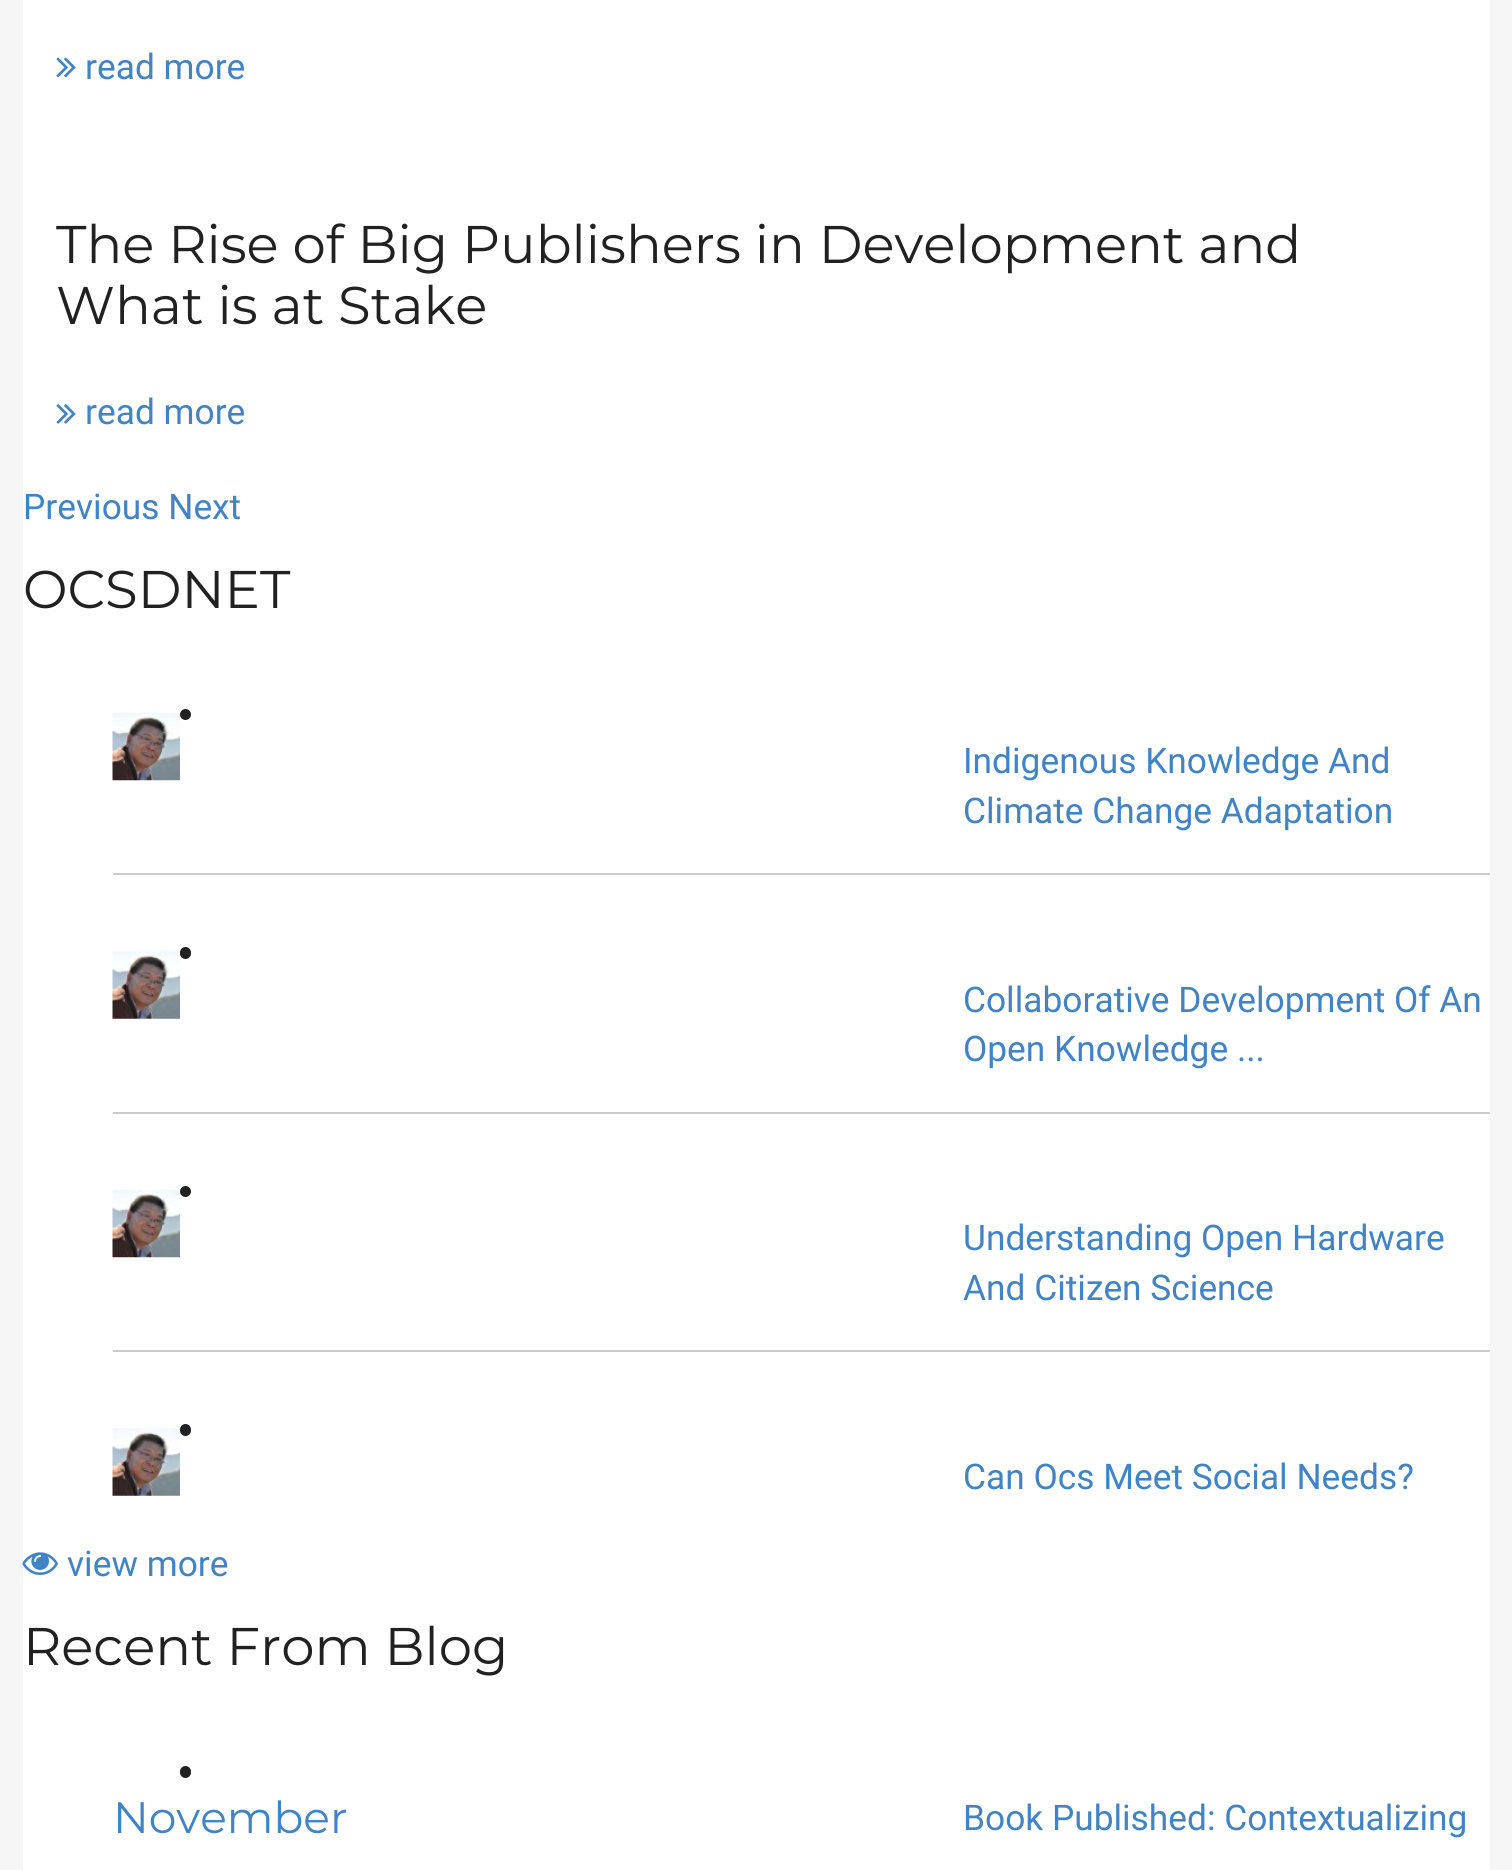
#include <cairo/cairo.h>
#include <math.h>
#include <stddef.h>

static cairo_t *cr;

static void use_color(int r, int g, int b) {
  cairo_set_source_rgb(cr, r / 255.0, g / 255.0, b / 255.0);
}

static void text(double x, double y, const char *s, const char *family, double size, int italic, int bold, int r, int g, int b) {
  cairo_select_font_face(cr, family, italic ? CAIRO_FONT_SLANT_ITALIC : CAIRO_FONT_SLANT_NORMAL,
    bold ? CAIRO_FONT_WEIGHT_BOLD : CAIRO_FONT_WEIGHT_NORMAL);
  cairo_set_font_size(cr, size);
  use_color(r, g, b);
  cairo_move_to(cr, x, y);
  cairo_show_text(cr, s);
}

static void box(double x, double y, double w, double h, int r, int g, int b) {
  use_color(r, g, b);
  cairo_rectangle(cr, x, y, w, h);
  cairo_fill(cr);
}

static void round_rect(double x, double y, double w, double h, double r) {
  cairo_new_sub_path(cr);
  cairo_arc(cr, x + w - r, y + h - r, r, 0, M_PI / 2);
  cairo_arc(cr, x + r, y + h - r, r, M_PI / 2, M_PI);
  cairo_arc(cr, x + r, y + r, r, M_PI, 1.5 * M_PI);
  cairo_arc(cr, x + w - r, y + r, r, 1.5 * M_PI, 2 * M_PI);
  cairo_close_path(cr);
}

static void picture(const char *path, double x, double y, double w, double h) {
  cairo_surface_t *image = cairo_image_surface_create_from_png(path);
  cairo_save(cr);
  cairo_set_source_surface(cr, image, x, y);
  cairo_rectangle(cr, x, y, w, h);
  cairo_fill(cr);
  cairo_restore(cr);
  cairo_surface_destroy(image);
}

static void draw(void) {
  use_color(246, 246, 246);
  cairo_paint(cr);
  box(23, 0, 1467, 1870, 255, 255, 255);
  picture("img_01.png", 56, 57, 20, 21);
  picture("img_02.png", 56, 404, 20, 20);
  use_color(33, 33, 33);
  cairo_arc(cr, 185.5, 714.5, 5.5, 0, 2 * M_PI);
  cairo_fill(cr);
  picture("img_03.png", 112, 712, 68, 69);
  box(113, 873, 1377, 2, 204, 204, 204);
  use_color(33, 33, 33);
  round_rect(180, 947, 11, 12, 5.5);
  cairo_fill(cr);
  picture("img_04.png", 112, 951, 68, 68);
  box(113, 1112, 1377, 2, 204, 204, 204);
  use_color(33, 33, 33);
  cairo_arc(cr, 185.5, 1191.5, 5.5, 0, 2 * M_PI);
  cairo_fill(cr);
  picture("img_03.png", 112, 1189, 68, 69);
  box(113, 1350, 1377, 2, 204, 204, 204);
  use_color(33, 33, 33);
  round_rect(180, 1424, 11, 12, 5.5);
  cairo_fill(cr);
  picture("img_04.png", 112, 1428, 68, 68);
  picture("img_05.png", 22, 1552, 36, 23);
  round_rect(180, 1766, 11, 12, 5.5);
  cairo_fill(cr);
  text(85, 79, "read more", "Roboto", 35.3, 0, 0, 65, 131, 196);
  text(56, 263, "The Rise of Big Publishers in Development and", "Montserrat", 53, 0, 0, 33, 33, 33);
  text(56, 324, "What is at Stake", "Montserrat", 53, 0, 0, 33, 33, 33);
  text(85, 424, "read more", "Roboto", 35.3, 0, 0, 65, 131, 196);
  text(23, 519, "Previous Next", "Roboto", 35.3, 0, 0, 65, 131, 196);
  text(23, 608, "OCSDNET", "Montserrat", 53, 0, 0, 33, 33, 33);
  text(963, 773, "Indigenous Knowledge And", "Roboto", 35.3, 0, 0, 65, 131, 196);
  text(963, 823, "Climate Change Adaptation", "Roboto", 35.3, 0, 0, 65, 131, 196);
  text(963, 1012, "Collaborative Development Of An", "Roboto", 35.3, 0, 0, 65, 131, 196);
  text(963, 1061, "Open Knowledge ...", "Roboto", 35.3, 0, 0, 65, 131, 196);
  text(963, 1250, "Understanding Open Hardware", "Roboto", 35.3, 0, 0, 65, 131, 196);
  text(963, 1300, "And Citizen Science", "Roboto", 35.3, 0, 0, 65, 131, 196);
  text(963, 1489, "Can Ocs Meet Social Needs?", "Roboto", 35.3, 0, 0, 65, 131, 196);
  text(67, 1576, "view more", "Roboto", 35.3, 0, 0, 65, 131, 196);
  text(23, 1665, "Recent From Blog", "Montserrat", 53, 0, 0, 33, 33, 33);
  text(113, 1833, "November", "Montserrat", 44, 0, 0, 65, 131, 196);
  text(963, 1830, "Book Published: Contextualizing", "Roboto", 35.3, 0, 0, 65, 131, 196);
}

int main(void) {
  cairo_surface_t *surface = cairo_image_surface_create(CAIRO_FORMAT_RGB24, 1512, 1870);
  cr = cairo_create(surface);
  cairo_font_options_t *options = cairo_font_options_create();
  cairo_font_options_set_hint_metrics(options, CAIRO_HINT_METRICS_OFF);
  cairo_font_options_set_hint_style(options, CAIRO_HINT_STYLE_NONE);
  cairo_set_font_options(cr, options);
  cairo_set_miter_limit(cr, 4);
  draw();
  cairo_surface_write_to_png(surface, "out.png");
  cairo_font_options_destroy(options);
  cairo_destroy(cr);
  cairo_surface_destroy(surface);
  return 0;
}
